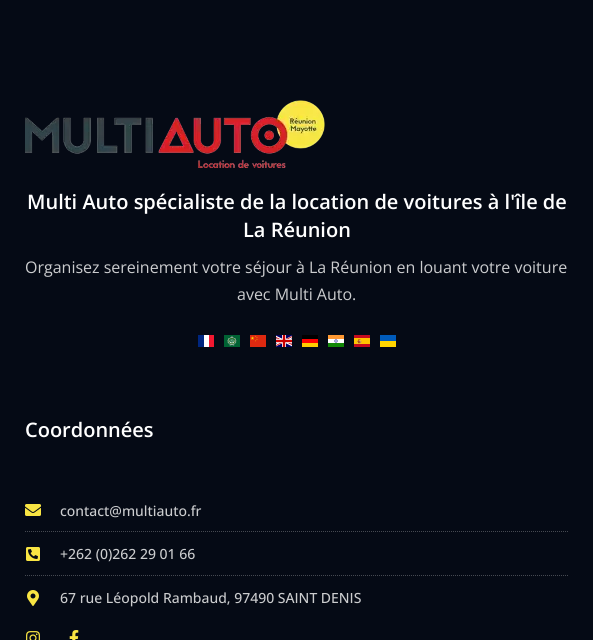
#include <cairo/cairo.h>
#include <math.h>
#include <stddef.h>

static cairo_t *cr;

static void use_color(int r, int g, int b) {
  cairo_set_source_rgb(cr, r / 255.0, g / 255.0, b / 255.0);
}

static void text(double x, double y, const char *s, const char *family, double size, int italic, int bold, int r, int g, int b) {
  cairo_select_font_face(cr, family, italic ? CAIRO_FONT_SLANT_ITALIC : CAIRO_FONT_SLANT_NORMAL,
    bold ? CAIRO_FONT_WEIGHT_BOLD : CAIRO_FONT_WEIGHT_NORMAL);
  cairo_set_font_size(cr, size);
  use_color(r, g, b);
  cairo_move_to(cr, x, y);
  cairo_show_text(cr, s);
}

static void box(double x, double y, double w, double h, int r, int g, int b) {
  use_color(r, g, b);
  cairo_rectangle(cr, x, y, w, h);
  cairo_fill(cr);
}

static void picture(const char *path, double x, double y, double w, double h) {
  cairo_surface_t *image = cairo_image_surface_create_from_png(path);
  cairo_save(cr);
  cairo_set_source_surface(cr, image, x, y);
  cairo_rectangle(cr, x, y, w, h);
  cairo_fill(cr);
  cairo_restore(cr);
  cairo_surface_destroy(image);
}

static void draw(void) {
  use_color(5, 10, 21);
  cairo_paint(cr);
  picture("img_01.png", 25, 100, 300, 68);
  box(204, 335, 5, 12, 255, 255, 255);
  box(198, 335, 6, 12, 0, 38, 127);
  box(209, 335, 5, 12, 243, 24, 48);
  picture("img_02.png", 224, 335, 16, 12);
  picture("img_03.png", 250, 335, 16, 12);
  picture("img_04.png", 276, 335, 16, 12);
  box(302, 343, 16, 4, 255, 204, 0);
  box(302, 335, 16, 4, 0, 0, 0);
  box(302, 339, 16, 4, 255, 0, 0);
  picture("img_05.png", 328, 335, 16, 12);
  picture("img_06.png", 354, 335, 16, 12);
  box(380, 341, 16, 6, 255, 213, 0);
  box(380, 335, 16, 6, 0, 91, 187);
  picture("img_07.png", 25, 504, 16, 12);
  cairo_new_path(cr);
  cairo_move_to(cr, 25, 531.5);
  cairo_line_to(cr, 568, 531.5);
  use_color(70, 74, 82);
  cairo_set_line_width(cr, 1);
  cairo_set_dash(cr, (double[]){1, 1}, 2, 0);
  cairo_stroke(cr);
  picture("img_08.png", 26, 547, 14, 14);
  cairo_new_path(cr);
  cairo_move_to(cr, 25, 575.5);
  cairo_line_to(cr, 568, 575.5);
  cairo_stroke(cr);
  picture("img_09.png", 27, 590, 12, 16);
  picture("img_10.png", 26, 631, 14, 9);
  picture("img_11.png", 69, 630, 10, 10);
  text(27, 209, "Multi Auto spécialiste de la location de voitures à l'île de", "Open Sans SemiBold", 20, 0, 0, 255, 255, 255);
  text(243, 237, "La Réunion", "Open Sans SemiBold", 20, 0, 0, 255, 255, 255);
  text(25, 273, "Organisez sereinement votre séjour à La Réunion en louant votre voiture", "Open Sans", 16, 0, 0, 203, 204, 206);
  text(237, 300, "avec Multi Auto.", "Open Sans", 16, 0, 0, 203, 204, 206);
  text(25, 437, "Coordonnées", "Open Sans SemiBold", 20, 0, 0, 255, 255, 255);
  text(60, 516, "contact@multiauto.fr", "Open Sans Medium", 14, 0, 0, 203, 204, 206);
  text(60, 559, "+262 (0)262 29 01 66", "Open Sans Medium", 14, 0, 0, 203, 204, 206);
  text(60, 603, "67 rue Léopold Rambaud, 97490 SAINT DENIS", "Open Sans Medium", 14, 0, 0, 203, 204, 206);
}

int main(void) {
  cairo_surface_t *surface = cairo_image_surface_create(CAIRO_FORMAT_RGB24, 593, 640);
  cr = cairo_create(surface);
  cairo_font_options_t *options = cairo_font_options_create();
  cairo_font_options_set_hint_metrics(options, CAIRO_HINT_METRICS_OFF);
  cairo_font_options_set_hint_style(options, CAIRO_HINT_STYLE_NONE);
  cairo_set_font_options(cr, options);
  cairo_set_miter_limit(cr, 4);
  draw();
  cairo_surface_write_to_png(surface, "out.png");
  cairo_font_options_destroy(options);
  cairo_destroy(cr);
  cairo_surface_destroy(surface);
  return 0;
}
